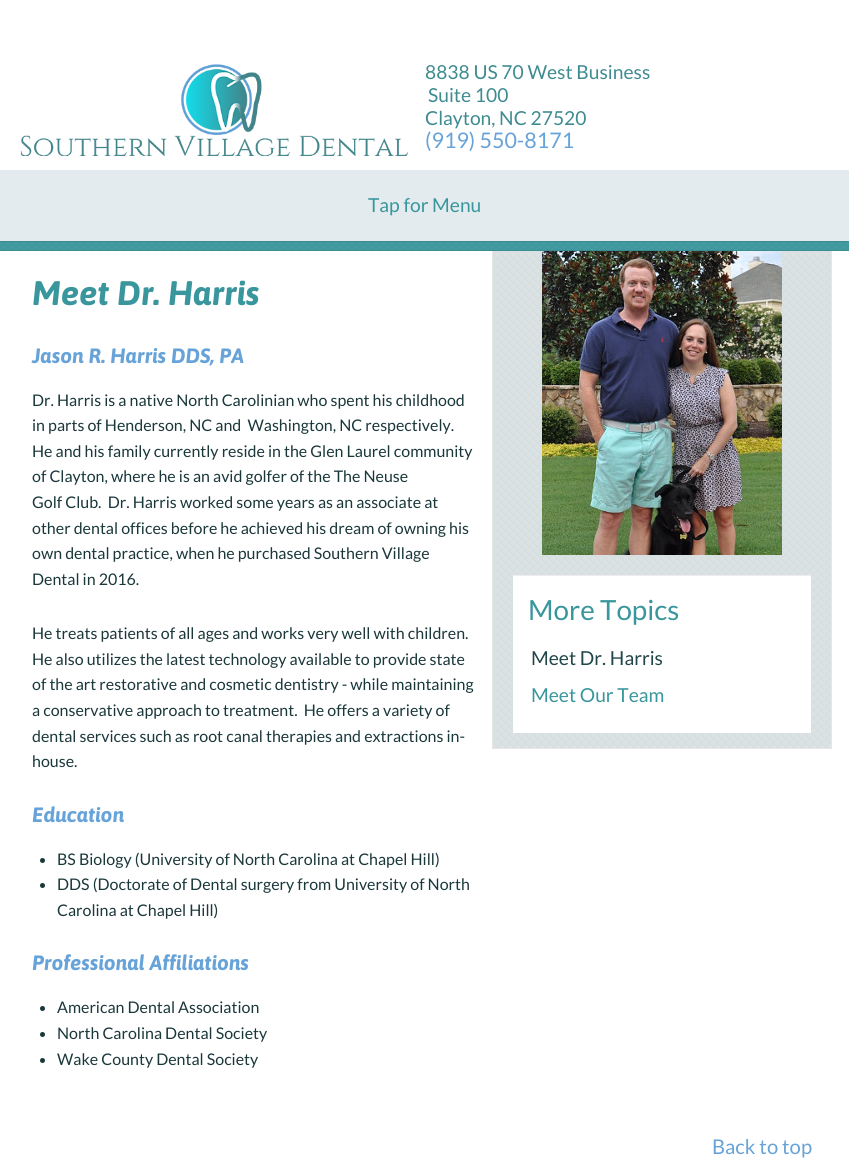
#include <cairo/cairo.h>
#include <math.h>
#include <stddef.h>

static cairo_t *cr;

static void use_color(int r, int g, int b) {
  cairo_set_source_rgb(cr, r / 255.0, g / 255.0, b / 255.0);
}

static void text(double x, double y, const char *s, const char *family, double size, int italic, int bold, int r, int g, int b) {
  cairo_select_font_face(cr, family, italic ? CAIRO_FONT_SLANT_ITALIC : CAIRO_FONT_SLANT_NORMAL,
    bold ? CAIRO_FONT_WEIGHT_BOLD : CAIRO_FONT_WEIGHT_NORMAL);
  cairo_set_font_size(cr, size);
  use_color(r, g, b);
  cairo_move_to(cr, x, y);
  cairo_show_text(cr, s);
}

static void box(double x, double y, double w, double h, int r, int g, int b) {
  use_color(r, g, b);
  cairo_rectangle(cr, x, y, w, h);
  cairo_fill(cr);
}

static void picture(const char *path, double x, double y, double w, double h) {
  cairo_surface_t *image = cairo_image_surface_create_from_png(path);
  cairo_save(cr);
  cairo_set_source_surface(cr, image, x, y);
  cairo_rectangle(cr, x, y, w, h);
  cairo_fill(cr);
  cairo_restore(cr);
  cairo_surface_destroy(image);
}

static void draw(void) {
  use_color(255, 255, 255);
  cairo_paint(cr);
  picture("img_01.png", 20, 64, 388, 92);
  box(0, 170, 849, 71, 228, 235, 238);
  use_color(230, 230, 230);
  cairo_new_path(cr);
  cairo_move_to(cr, 832, 250);
  cairo_line_to(cr, 832, 749);
  cairo_line_to(cr, 831, 748);
  cairo_line_to(cr, 831, 250);
  cairo_close_path(cr);
  cairo_fill(cr);
  cairo_set_source_rgba(cr, 0, 0, 0, 0.1);
  cairo_new_path(cr);
  cairo_move_to(cr, 832, 749);
  cairo_line_to(cr, 492, 749);
  cairo_line_to(cr, 493, 748);
  cairo_line_to(cr, 831, 748);
  cairo_close_path(cr);
  cairo_fill(cr);
  cairo_new_path(cr);
  cairo_move_to(cr, 492, 749);
  cairo_line_to(cr, 492, 250);
  cairo_line_to(cr, 493, 250);
  cairo_line_to(cr, 493, 748);
  cairo_close_path(cr);
  cairo_fill(cr);
  box(0, 241, 849, 10, 56, 150, 156);
  picture("img_02.png", 0, 241, 849, 10);
  cairo_set_source_rgba(cr, 0, 0, 0, 0.1);
  cairo_rectangle(cr, 0, 241, 849, 1);
  cairo_fill(cr);
  cairo_rectangle(cr, 0, 250, 849, 1);
  cairo_fill(cr);
  use_color(26, 55, 58);
  cairo_arc(cr, 42.5, 860.5, 2.5, 0, 2 * M_PI);
  cairo_fill(cr);
  cairo_arc(cr, 42.5, 885.5, 2.5, 0, 2 * M_PI);
  cairo_fill(cr);
  cairo_arc(cr, 42.5, 1008.5, 2.5, 0, 2 * M_PI);
  cairo_fill(cr);
  cairo_arc(cr, 42.5, 1034.5, 2.5, 0, 2 * M_PI);
  cairo_fill(cr);
  cairo_arc(cr, 42.5, 1060.5, 2.5, 0, 2 * M_PI);
  cairo_fill(cr);
  box(493, 251, 338, 497, 217, 224, 227);
  picture("img_03.png", 493, 251, 338, 497);
  picture("img_04.png", 542, 251, 240, 304);
  box(513, 576, 298, 157, 255, 255, 255);
  box(513, 575, 298, 1, 238, 238, 238);
  text(425, 79, "8838 US 70 West Business", "Lato", 19.25, 0, 0, 62, 139, 144);
  text(428, 102, "Suite 100", "Lato", 19.25, 0, 0, 62, 139, 144);
  text(425, 125, "Clayton, NC 27520", "Lato", 19.25, 0, 0, 62, 139, 144);
  text(425, 148, "(919) 550-8171", "Lato", 21.5, 0, 0, 103, 163, 216);
  text(368, 212, "Tap for Menu", "Lato", 19.25, 0, 0, 56, 150, 156);
  text(32, 305, "Meet Dr. Harris", "Asap", 34, 1, 1, 56, 150, 156);
  text(32, 363, "Jason R. Harris DDS, PA", "Asap", 20.75, 1, 1, 103, 163, 216);
  text(32, 406, "Dr. Harris is a native North Carolinian who spent his childhood", "Lato", 16, 0, 0, 26, 55, 58);
  text(32, 431, "in parts of Henderson, NC and  Washington, NC respectively.", "Lato", 16, 0, 0, 26, 55, 58);
  text(32, 457, "He and his family currently reside in the Glen Laurel community", "Lato", 16, 0, 0, 26, 55, 58);
  text(32, 482, "of Clayton, where he is an avid golfer of the The Neuse", "Lato", 16, 0, 0, 26, 55, 58);
  text(32, 508, "Golf Club.  Dr. Harris worked some years as an associate at", "Lato", 16, 0, 0, 26, 55, 58);
  text(32, 534, "other dental offices before he achieved his dream of owning his", "Lato", 16, 0, 0, 26, 55, 58);
  text(32, 559, "own dental practice, when he purchased Southern Village", "Lato", 16, 0, 0, 26, 55, 58);
  text(32, 585, "Dental in 2016.", "Lato", 16, 0, 0, 26, 55, 58);
  text(32, 639, "He treats patients of all ages and works very well with children.", "Lato", 16, 0, 0, 26, 55, 58);
  text(32, 665, "He also utilizes the latest technology available to provide state", "Lato", 16, 0, 0, 26, 55, 58);
  text(32, 690, "of the art restorative and cosmetic dentistry - while maintaining", "Lato", 16, 0, 0, 26, 55, 58);
  text(32, 716, "a conservative approach to treatment.  He offers a variety of", "Lato", 16, 0, 0, 26, 55, 58);
  text(32, 742, "dental services such as root canal therapies and extractions in-", "Lato", 16, 0, 0, 26, 55, 58);
  text(32, 767, "house.", "Lato", 16, 0, 0, 26, 55, 58);
  text(32, 822, "Education", "Asap", 20.75, 1, 1, 103, 163, 216);
  text(57, 865, "BS Biology (University of North Carolina at Chapel Hill)", "Lato", 16, 0, 0, 26, 55, 58);
  text(57, 890, "DDS (Doctorate of Dental surgery from University of North", "Lato", 16, 0, 0, 26, 55, 58);
  text(57, 916, "Carolina at Chapel Hill)", "Lato", 16, 0, 0, 26, 55, 58);
  text(32, 970, "Professional Affiliations", "Asap", 20.75, 1, 1, 103, 163, 216);
  text(57, 1013, "American Dental Association", "Lato", 16, 0, 0, 26, 55, 58);
  text(57, 1039, "North Carolina Dental Society", "Lato", 16, 0, 0, 26, 55, 58);
  text(57, 1065, "Wake County Dental Society", "Lato", 16, 0, 0, 26, 55, 58);
  text(528, 620, "More Topics", "Lato", 27.75, 0, 0, 56, 150, 156);
  text(531, 665, "Meet Dr. Harris", "Lato", 19.25, 0, 0, 33, 69, 72);
  text(531, 702, "Meet Our Team", "Lato", 19.25, 0, 0, 56, 150, 156);
  text(712, 1154, "Back to top", "Lato", 20.25, 0, 0, 103, 163, 216);
}

int main(void) {
  cairo_surface_t *surface = cairo_image_surface_create(CAIRO_FORMAT_RGB24, 849, 1159);
  cr = cairo_create(surface);
  cairo_font_options_t *options = cairo_font_options_create();
  cairo_font_options_set_hint_metrics(options, CAIRO_HINT_METRICS_OFF);
  cairo_font_options_set_hint_style(options, CAIRO_HINT_STYLE_NONE);
  cairo_set_font_options(cr, options);
  cairo_set_miter_limit(cr, 4);
  draw();
  cairo_surface_write_to_png(surface, "out.png");
  cairo_font_options_destroy(options);
  cairo_destroy(cr);
  cairo_surface_destroy(surface);
  return 0;
}
